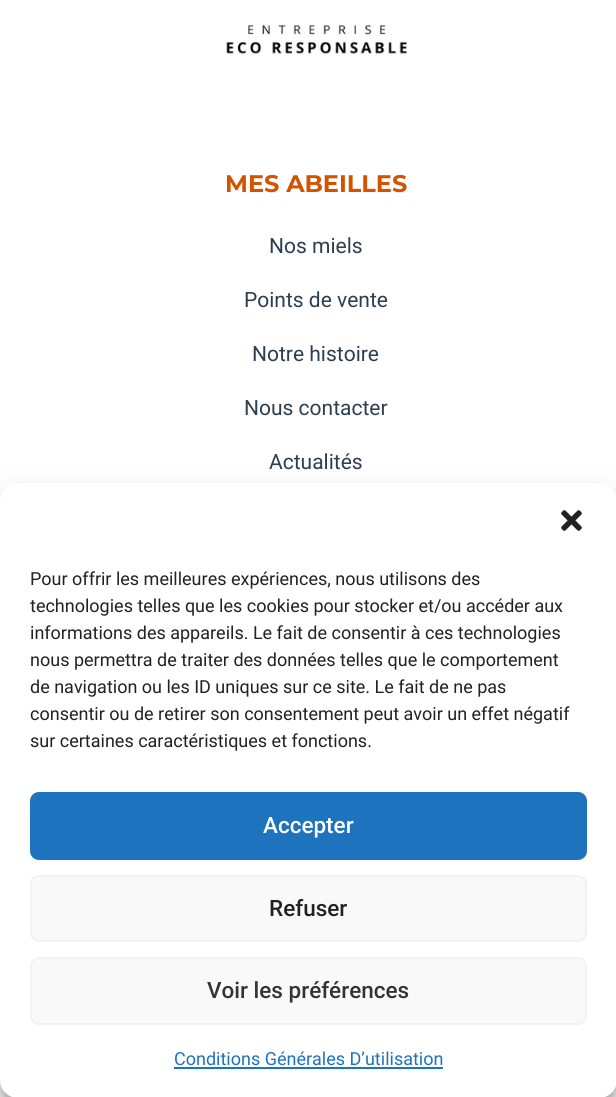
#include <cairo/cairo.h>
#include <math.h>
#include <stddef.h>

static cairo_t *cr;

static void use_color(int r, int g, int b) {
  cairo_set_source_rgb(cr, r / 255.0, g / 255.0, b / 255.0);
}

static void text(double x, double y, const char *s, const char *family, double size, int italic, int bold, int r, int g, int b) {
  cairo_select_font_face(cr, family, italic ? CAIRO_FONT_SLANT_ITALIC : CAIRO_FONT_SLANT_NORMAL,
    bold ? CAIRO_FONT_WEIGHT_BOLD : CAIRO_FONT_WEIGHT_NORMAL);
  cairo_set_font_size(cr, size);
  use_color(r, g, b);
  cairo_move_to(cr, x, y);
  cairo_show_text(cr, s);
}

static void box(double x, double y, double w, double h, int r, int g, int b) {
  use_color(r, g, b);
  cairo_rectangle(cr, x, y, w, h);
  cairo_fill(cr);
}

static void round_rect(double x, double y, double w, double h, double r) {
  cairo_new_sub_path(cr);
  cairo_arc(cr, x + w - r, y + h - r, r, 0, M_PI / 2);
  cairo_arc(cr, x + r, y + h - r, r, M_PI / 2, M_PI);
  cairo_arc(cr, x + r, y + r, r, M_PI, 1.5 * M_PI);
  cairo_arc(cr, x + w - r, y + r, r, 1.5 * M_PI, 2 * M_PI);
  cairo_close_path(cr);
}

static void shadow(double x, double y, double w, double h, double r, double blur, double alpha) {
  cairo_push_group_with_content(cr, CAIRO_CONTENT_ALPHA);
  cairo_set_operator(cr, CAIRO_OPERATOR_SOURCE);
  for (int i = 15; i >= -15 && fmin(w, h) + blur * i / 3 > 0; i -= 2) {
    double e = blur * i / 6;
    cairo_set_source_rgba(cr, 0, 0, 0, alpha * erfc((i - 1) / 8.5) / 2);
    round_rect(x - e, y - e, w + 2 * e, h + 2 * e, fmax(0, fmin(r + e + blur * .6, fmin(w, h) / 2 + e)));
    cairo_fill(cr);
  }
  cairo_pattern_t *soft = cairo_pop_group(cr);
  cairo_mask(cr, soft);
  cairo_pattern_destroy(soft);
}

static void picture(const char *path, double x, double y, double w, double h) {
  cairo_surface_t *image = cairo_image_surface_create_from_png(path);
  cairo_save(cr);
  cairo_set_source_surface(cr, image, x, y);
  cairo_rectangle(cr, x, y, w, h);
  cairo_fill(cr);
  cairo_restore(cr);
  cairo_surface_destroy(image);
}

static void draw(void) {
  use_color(255, 255, 255);
  cairo_paint(cr);
  picture("img_01.png", 226, 24, 181, 31);
  use_color(0, 0, 0);
  shadow(0, 492, 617, 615, 18, 4.5, 0.23);
  shadow(0, 498, 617, 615, 18, 15, 0.19);
  use_color(255, 255, 255);
  round_rect(0, 483, 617, 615, 18);
  cairo_fill(cr);
  picture("img_02.png", 561, 510, 21, 21);
  use_color(30, 115, 190);
  round_rect(31, 793, 555, 66, 8);
  cairo_fill_preserve(cr);
  cairo_stroke(cr);
  use_color(249, 249, 249);
  round_rect(31, 876, 555, 65, 8);
  cairo_fill_preserve(cr);
  use_color(242, 242, 242);
  cairo_stroke(cr);
  use_color(249, 249, 249);
  round_rect(31, 958, 555, 66, 8);
  cairo_fill_preserve(cr);
  use_color(242, 242, 242);
  cairo_stroke(cr);
  box(174, 1067, 269, 2, 30, 115, 190);
  text(225, 192, "MES ABEILLES", "Montserrat", 24, 0, 1, 211, 84, 0);
  text(269, 253, "Nos miels", "Roboto", 21, 0, 0, 44, 62, 80);
  text(244, 307, "Points de vente", "Roboto", 21, 0, 0, 44, 62, 80);
  text(252, 361, "Notre histoire", "Roboto", 21, 0, 0, 44, 62, 80);
  text(244, 415, "Nous contacter", "Roboto", 21, 0, 0, 44, 62, 80);
  text(269, 469, "Actualités", "Roboto", 21, 0, 0, 44, 62, 80);
  text(30, 585, "Pour offrir les meilleures expériences, nous utilisons des", "Roboto", 18, 0, 0, 34, 34, 34);
  text(30, 612, "technologies telles que les cookies pour stocker et/ou accéder aux", "Roboto", 18, 0, 0, 34, 34, 34);
  text(30, 639, "informations des appareils. Le fait de consentir à ces technologies", "Roboto", 18, 0, 0, 34, 34, 34);
  text(30, 666, "nous permettra de traiter des données telles que le comportement", "Roboto", 18, 0, 0, 34, 34, 34);
  text(30, 693, "de navigation ou les ID uniques sur ce site. Le fait de ne pas", "Roboto", 18, 0, 0, 34, 34, 34);
  text(30, 720, "consentir ou de retirer son consentement peut avoir un effet négatif", "Roboto", 18, 0, 0, 34, 34, 34);
  text(30, 747, "sur certaines caractéristiques et fonctions.", "Roboto", 18, 0, 0, 34, 34, 34);
  text(263, 833, "Accepter", "Roboto Medium", 22.5, 0, 0, 255, 255, 255);
  text(269, 916, "Refuser", "Roboto Medium", 22.5, 0, 0, 34, 34, 34);
  text(207, 998, "Voir les préférences", "Roboto Medium", 22.5, 0, 0, 51, 51, 51);
  text(174, 1065, "Conditions Générales D’utilisation", "Roboto", 18, 0, 0, 30, 115, 190);
}

int main(void) {
  cairo_surface_t *surface = cairo_image_surface_create(CAIRO_FORMAT_RGB24, 616, 1097);
  cr = cairo_create(surface);
  cairo_font_options_t *options = cairo_font_options_create();
  cairo_font_options_set_hint_metrics(options, CAIRO_HINT_METRICS_OFF);
  cairo_font_options_set_hint_style(options, CAIRO_HINT_STYLE_NONE);
  cairo_set_font_options(cr, options);
  cairo_set_miter_limit(cr, 4);
  draw();
  cairo_surface_write_to_png(surface, "out.png");
  cairo_font_options_destroy(options);
  cairo_destroy(cr);
  cairo_surface_destroy(surface);
  return 0;
}
